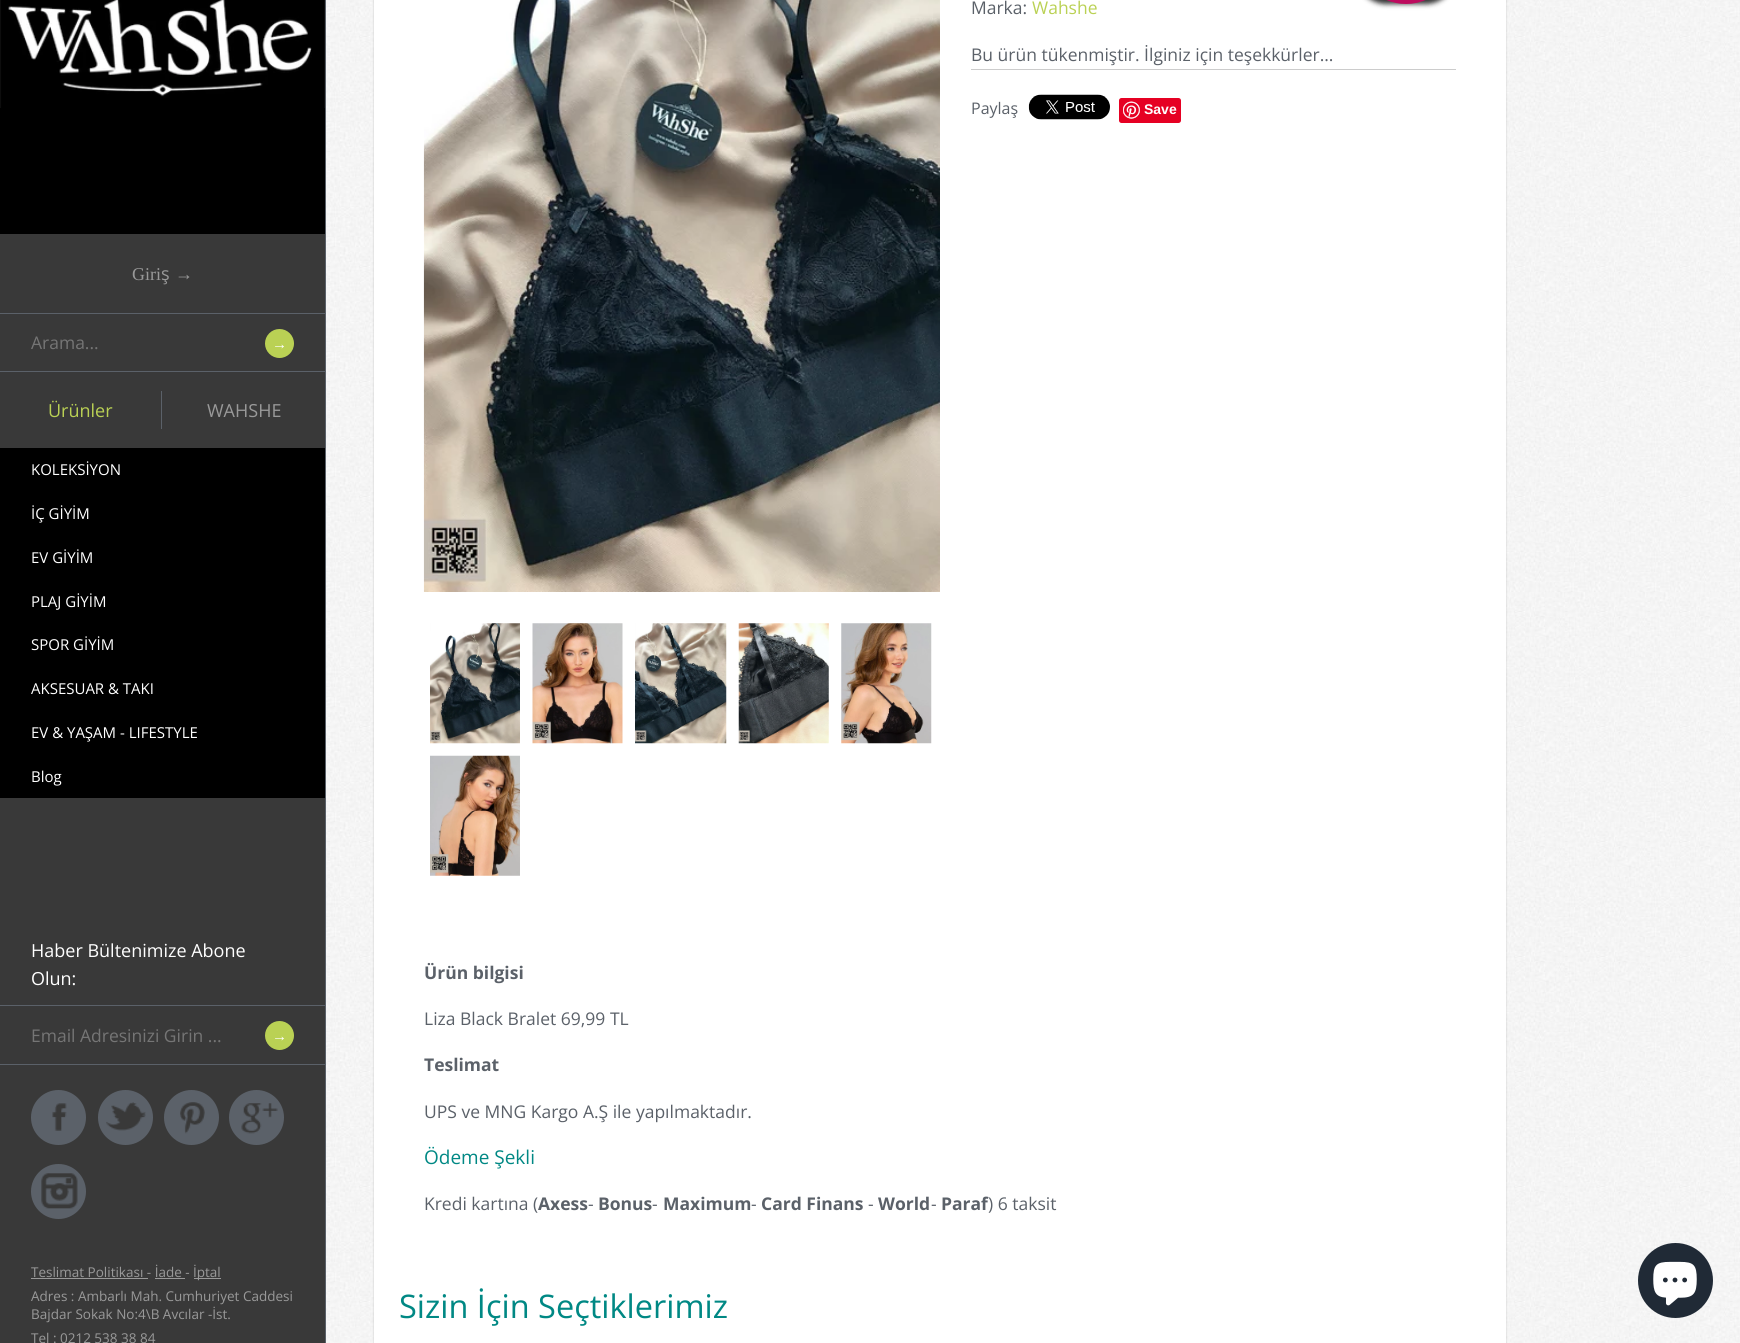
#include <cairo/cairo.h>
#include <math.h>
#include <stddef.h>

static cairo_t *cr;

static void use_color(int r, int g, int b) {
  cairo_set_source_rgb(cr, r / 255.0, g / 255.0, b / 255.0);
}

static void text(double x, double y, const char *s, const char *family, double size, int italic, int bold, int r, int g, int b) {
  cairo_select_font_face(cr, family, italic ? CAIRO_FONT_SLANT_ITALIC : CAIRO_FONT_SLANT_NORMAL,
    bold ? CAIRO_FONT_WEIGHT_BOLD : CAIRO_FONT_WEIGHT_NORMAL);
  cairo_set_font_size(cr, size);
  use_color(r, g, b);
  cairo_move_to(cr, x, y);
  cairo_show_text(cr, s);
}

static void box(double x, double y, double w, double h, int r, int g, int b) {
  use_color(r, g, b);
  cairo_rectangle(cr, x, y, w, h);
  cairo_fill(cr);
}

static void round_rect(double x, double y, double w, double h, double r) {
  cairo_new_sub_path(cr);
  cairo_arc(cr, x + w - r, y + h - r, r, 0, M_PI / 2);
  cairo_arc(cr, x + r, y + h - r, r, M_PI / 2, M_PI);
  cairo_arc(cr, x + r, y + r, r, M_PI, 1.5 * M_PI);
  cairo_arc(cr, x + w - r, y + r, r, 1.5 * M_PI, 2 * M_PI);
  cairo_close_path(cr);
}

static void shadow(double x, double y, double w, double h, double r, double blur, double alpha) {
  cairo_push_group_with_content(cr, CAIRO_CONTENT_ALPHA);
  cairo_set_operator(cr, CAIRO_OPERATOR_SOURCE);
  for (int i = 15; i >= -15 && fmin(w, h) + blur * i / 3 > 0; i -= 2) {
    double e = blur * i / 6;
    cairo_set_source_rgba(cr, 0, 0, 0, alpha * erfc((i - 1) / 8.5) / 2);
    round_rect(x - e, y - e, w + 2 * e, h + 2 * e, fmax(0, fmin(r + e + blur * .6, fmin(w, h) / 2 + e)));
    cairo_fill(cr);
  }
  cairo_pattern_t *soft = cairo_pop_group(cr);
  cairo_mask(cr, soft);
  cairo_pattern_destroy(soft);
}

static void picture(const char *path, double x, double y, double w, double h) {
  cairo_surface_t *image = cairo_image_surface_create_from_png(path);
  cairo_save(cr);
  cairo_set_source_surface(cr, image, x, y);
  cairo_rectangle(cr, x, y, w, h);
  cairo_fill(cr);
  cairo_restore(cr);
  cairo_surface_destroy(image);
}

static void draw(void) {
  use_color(255, 255, 255);
  cairo_paint(cr);
  picture("img_01.png", 326, 0, 1414, 1343);
  box(0, 234, 325, 1109, 57, 57, 57);
  box(325, 0, 1, 1343, 91, 97, 105);
  box(0, 108, 325, 126, 0, 0, 0);
  picture("img_02.png", 0, 0, 325, 108);
  box(0, 313, 325, 1, 91, 97, 105);
  box(0, 371, 325, 1, 91, 97, 105);
  use_color(186, 209, 84);
  cairo_arc(cr, 279.5, 343.5, 14.5, 0, 2 * M_PI);
  cairo_fill(cr);
  box(161, 391, 1, 38, 91, 97, 105);
  box(0, 448, 325, 350, 0, 0, 0);
  box(0, 1005, 325, 1, 91, 97, 105);
  box(0, 1064, 325, 1, 91, 97, 105);
  use_color(186, 209, 84);
  cairo_arc(cr, 279.5, 1035.5, 14.5, 0, 2 * M_PI);
  cairo_fill(cr);
  use_color(91, 97, 105);
  cairo_arc(cr, 58.5, 1117.5, 27.5, 0, 2 * M_PI);
  cairo_fill(cr);
  picture("img_03.png", 52, 1103, 15, 28);
  cairo_arc(cr, 125.5, 1117.5, 27.5, 0, 2 * M_PI);
  cairo_fill(cr);
  picture("img_04.png", 106, 1102, 40, 29);
  cairo_arc(cr, 191.5, 1117.5, 27.5, 0, 2 * M_PI);
  cairo_fill(cr);
  picture("img_05.png", 180, 1102, 25, 32);
  cairo_arc(cr, 256.5, 1117.5, 27.5, 0, 2 * M_PI);
  cairo_fill(cr);
  picture("img_06.png", 241, 1103, 37, 31);
  cairo_arc(cr, 58.5, 1191.5, 27.5, 0, 2 * M_PI);
  cairo_fill(cr);
  picture("img_07.png", 41, 1173, 37, 36);
  box(31, 1278, 117, 1, 153, 153, 153);
  box(194, 1278, 27, 1, 153, 153, 153);
  box(155, 1278, 30, 1, 153, 153, 153);
  use_color(0, 0, 0);
  shadow(374, -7, 1132, 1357, 4, 1, 0.2);
  box(374, 0, 1132, 1343, 255, 255, 255);
  picture("img_08.png", 423, 0, 517, 592);
  picture("img_09.png", 430, 623, 90, 121);
  picture("img_10.png", 532, 623, 91, 121);
  picture("img_11.png", 635, 623, 92, 121);
  picture("img_12.png", 738, 623, 91, 121);
  picture("img_13.png", 841, 623, 91, 121);
  picture("img_14.png", 430, 755, 90, 121);
  use_color(51, 51, 51);
  shadow(1356, -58, 100, 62, 50, 2.5, 1);
  use_color(189, 11, 94);
  round_rect(1356, -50, 100, 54, 50);
  cairo_fill(cr);
  box(971, 69, 485, 1, 204, 204, 204);
  picture("img_15.png", 1028, 94, 82, 26);
  use_color(230, 0, 35);
  round_rect(1119, 98, 62, 25, 2.5);
  cairo_fill(cr);
  picture("img_16.png", 1123, 101, 17, 18);
  use_color(32, 42, 54);
  cairo_arc(cr, 1675.5, 1280.5, 37.5, 0, 2 * M_PI);
  cairo_fill(cr);
  picture("img_17.png", 1653, 1261, 44, 45);
  text(132, 280, "Giri", "Liberation Serif", 18, 0, 0, 153, 153, 153);
  text(161, 280, "ş", "Open Sans", 18, 0, 0, 153, 153, 153);
  text(175, 280, "→", "Liberation Serif", 18, 0, 0, 153, 153, 153);
  text(31, 349, "Arama...", "Open Sans", 17.5, 0, 0, 117, 117, 117);
  text(272, 349, "→", "Liberation Serif", 15, 0, 0, 255, 255, 255);
  text(48, 417, "Ürünler", "Open Sans", 18, 0, 0, 186, 209, 84);
  text(31, 475, "KOLEKSİYON", "Open Sans", 15, 0, 0, 255, 255, 255);
  text(31, 519, "İÇ GİYİM", "Open Sans", 15, 0, 0, 255, 255, 255);
  text(31, 563, "EV GİYİM", "Open Sans", 15, 0, 0, 255, 255, 255);
  text(31, 607, "PLAJ GİYİM", "Open Sans", 15, 0, 0, 255, 255, 255);
  text(31, 650, "SPOR GİYİM", "Open Sans", 15, 0, 0, 255, 255, 255);
  text(31, 694, "AKSESUAR & TAKI", "Open Sans", 15, 0, 0, 255, 255, 255);
  text(31, 738, "EV & YAŞAM - LIFESTYLE", "Open Sans", 15, 0, 0, 255, 255, 255);
  text(31, 782, "Blog", "Open Sans", 15, 0, 0, 255, 255, 255);
  text(207, 417, "WAHSHE", "Open Sans", 18, 0, 0, 153, 153, 153);
  text(31, 957, "Haber Bültenimize Abone", "Open Sans", 18, 0, 0, 255, 255, 255);
  text(31, 985, "Olun:", "Open Sans", 18, 0, 0, 255, 255, 255);
  text(31, 1042, "Email Adresinizi Girin ...", "Open Sans", 17.5, 0, 0, 117, 117, 117);
  text(272, 1041, "→", "Liberation Serif", 15, 0, 0, 255, 255, 255);
  text(31, 1277, "Teslimat Politikası - İade -", "Open Sans", 13.5, 0, 0, 153, 153, 153);
  text(193, 1277, "İptal", "Open Sans", 13.5, 0, 0, 153, 153, 153);
  text(31, 1301, "Adres : Ambarlı Mah. Cumhuriyet Caddesi", "Open Sans", 13.5, 0, 0, 153, 153, 153);
  text(31, 1319, "Bajdar Sokak No:4\\B Avcılar -İst.", "Open Sans", 13.5, 0, 0, 153, 153, 153);
  text(31, 1343, "Tel : 0212 538 38 84", "Open Sans", 13.5, 0, 0, 153, 153, 153);
  text(971, 14, "Marka:", "Open Sans", 17.5, 0, 0, 91, 97, 105);
  text(1032, 14, "Wahshe", "Open Sans", 17.5, 0, 0, 186, 209, 84);
  text(971, 61, "Bu ürün tükenmiştir. İlginiz için teşekkürler...", "Open Sans", 17.5, 0, 0, 91, 97, 105);
  text(971, 114, "Paylaş", "Open Sans", 16, 0, 0, 91, 97, 105);
  text(1144, 114, "Save", "Liberation Sans", 14, 0, 1, 255, 255, 255);
  text(424, 979, "Ürün bilgisi", "Open Sans", 17.5, 0, 1, 91, 97, 105);
  text(424, 1025, "Liza Black Bralet 69,99 TL", "Open Sans", 17.5, 0, 0, 91, 97, 105);
  text(424, 1071, "Teslimat", "Open Sans", 17.5, 0, 1, 91, 97, 105);
  text(424, 1118, "UPS ve MNG Kargo A.Ş ile yapılmaktadır.", "Open Sans", 17.5, 0, 0, 91, 97, 105);
  text(424, 1164, "Ödeme Şekli", "Open Sans", 19, 0, 0, 0, 136, 132);
  text(424, 1210, "Kredi kartına (", "Open Sans", 17.5, 0, 0, 91, 97, 105);
  text(538, 1210, "Axess", "Open Sans", 17.5, 0, 1, 91, 97, 105);
  text(588, 1210, "-", "Open Sans", 17.5, 0, 0, 91, 97, 105);
  text(598, 1210, "Bonus", "Open Sans", 17.5, 0, 1, 91, 97, 105);
  text(652, 1210, "-", "Open Sans", 17.5, 0, 0, 91, 97, 105);
  text(663, 1210, "Maximum", "Open Sans", 17.5, 0, 1, 91, 97, 105);
  text(751, 1210, "-", "Open Sans", 17.5, 0, 0, 91, 97, 105);
  text(761, 1210, "Card Finans", "Open Sans", 17.5, 0, 1, 91, 97, 105);
  text(868, 1210, "-", "Open Sans", 17.5, 0, 0, 91, 97, 105);
  text(878, 1210, "World", "Open Sans", 17.5, 0, 1, 91, 97, 105);
  text(931, 1210, "-", "Open Sans", 17.5, 0, 0, 91, 97, 105);
  text(941, 1210, "Paraf", "Open Sans", 17.5, 0, 1, 91, 97, 105);
  text(988, 1210, ") 6 taksit", "Open Sans", 17.5, 0, 0, 91, 97, 105);
  text(399, 1318, "Sizin İçin Seçtiklerimiz", "Open Sans", 32.5, 0, 0, 0, 136, 132);
}

int main(void) {
  cairo_surface_t *surface = cairo_image_surface_create(CAIRO_FORMAT_RGB24, 1740, 1343);
  cr = cairo_create(surface);
  cairo_font_options_t *options = cairo_font_options_create();
  cairo_font_options_set_hint_metrics(options, CAIRO_HINT_METRICS_OFF);
  cairo_font_options_set_hint_style(options, CAIRO_HINT_STYLE_NONE);
  cairo_set_font_options(cr, options);
  cairo_set_miter_limit(cr, 4);
  draw();
  cairo_surface_write_to_png(surface, "out.png");
  cairo_font_options_destroy(options);
  cairo_destroy(cr);
  cairo_surface_destroy(surface);
  return 0;
}
